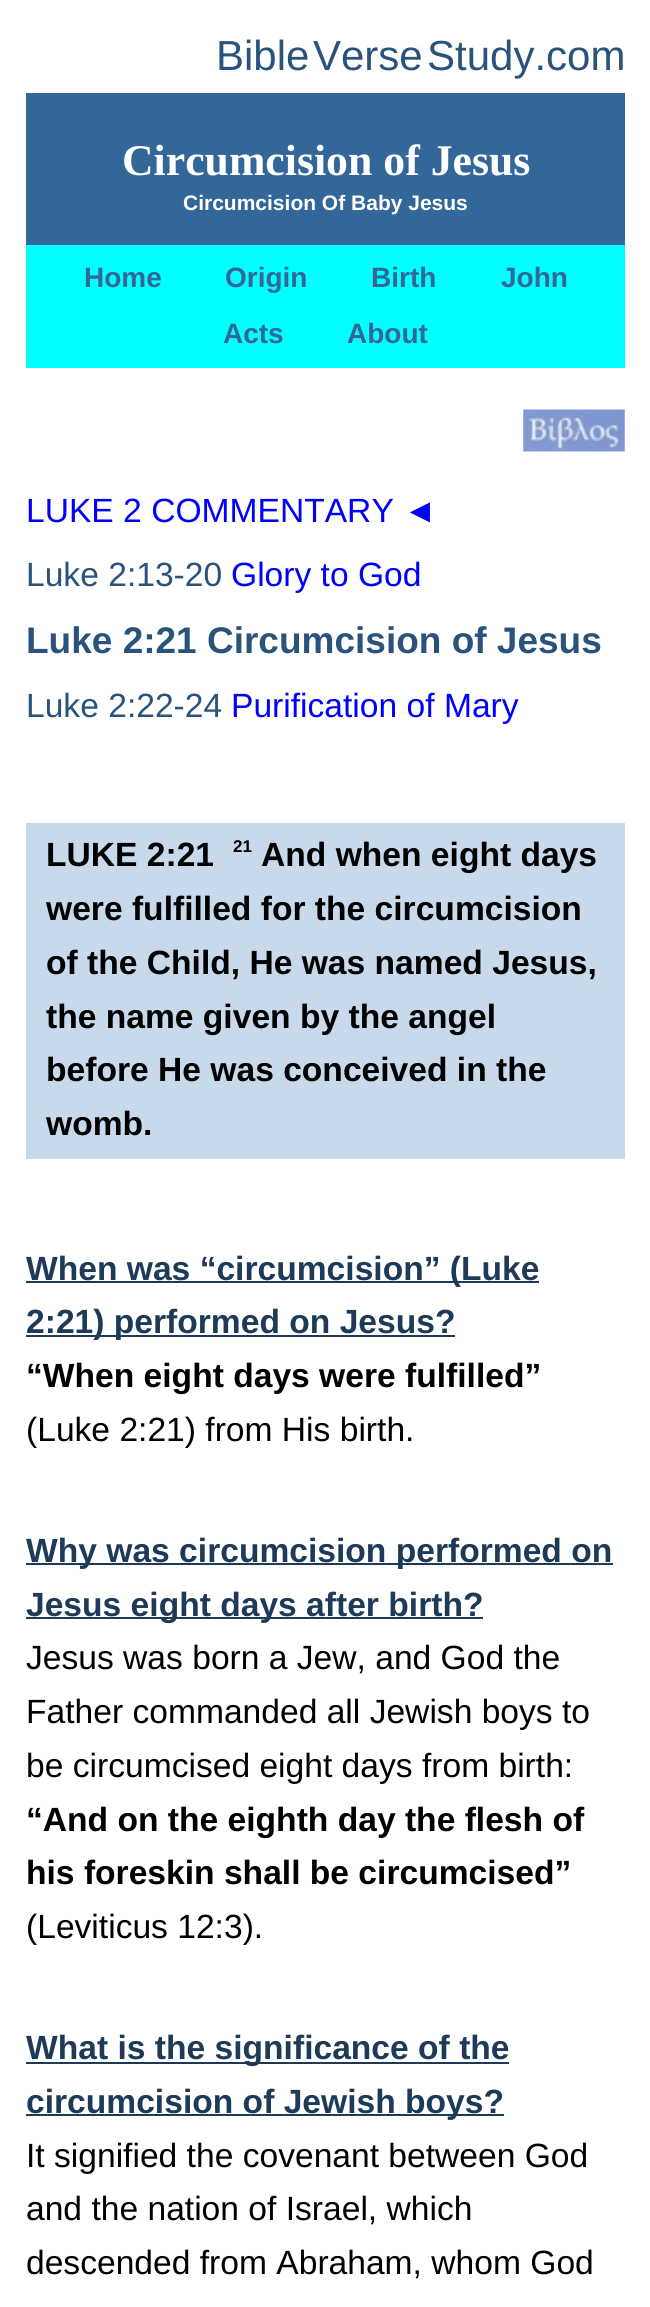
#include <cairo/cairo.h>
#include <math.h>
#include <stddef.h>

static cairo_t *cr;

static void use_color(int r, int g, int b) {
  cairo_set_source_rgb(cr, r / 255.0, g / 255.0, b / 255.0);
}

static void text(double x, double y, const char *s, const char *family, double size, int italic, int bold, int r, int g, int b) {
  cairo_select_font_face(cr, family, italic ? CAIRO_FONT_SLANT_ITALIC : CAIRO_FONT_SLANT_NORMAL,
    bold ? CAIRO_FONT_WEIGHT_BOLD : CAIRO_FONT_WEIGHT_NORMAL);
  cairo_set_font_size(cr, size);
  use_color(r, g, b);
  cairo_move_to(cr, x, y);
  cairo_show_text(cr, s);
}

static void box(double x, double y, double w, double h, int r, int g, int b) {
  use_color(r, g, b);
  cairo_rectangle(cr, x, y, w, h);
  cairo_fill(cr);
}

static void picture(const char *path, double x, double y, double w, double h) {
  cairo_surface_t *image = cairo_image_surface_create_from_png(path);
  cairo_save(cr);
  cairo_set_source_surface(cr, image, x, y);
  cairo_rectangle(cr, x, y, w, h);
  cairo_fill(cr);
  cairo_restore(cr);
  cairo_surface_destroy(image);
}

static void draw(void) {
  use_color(255, 255, 255);
  cairo_paint(cr);
  box(26, 93, 599, 152, 51, 102, 153);
  box(26, 245, 599, 123, 0, 255, 255);
  picture("img_01.png", 523, 409, 102, 43);
  box(26, 823, 599, 336, 199, 217, 235);
  box(26, 1281, 513, 2, 29, 58, 88);
  box(26, 1335, 429, 2, 29, 58, 88);
  box(26, 1563, 587, 2, 29, 58, 88);
  box(26, 1617, 457, 2, 29, 58, 88);
  box(26, 2062, 483, 2, 29, 58, 88);
  box(26, 2114, 478, 2, 29, 58, 88);
  text(216, 70, "Bible", "Liberation Sans", 42, 0, 0, 41, 83, 124);
  text(313, 70, "Verse", "Liberation Sans", 42, 0, 0, 41, 83, 124);
  text(427, 70, "Study.com", "Liberation Sans", 42, 0, 0, 41, 83, 124);
  text(122, 175, "Circumcision of Jesus", "Liberation Serif", 43.75, 0, 1, 255, 255, 255);
  text(183, 210, "Circumcision Of Baby Jesus", "Liberation Sans", 21, 0, 1, 255, 255, 255);
  text(84, 287, "Home", "Liberation Sans", 28, 0, 1, 51, 102, 153);
  text(225, 287, "Origin", "Liberation Sans", 28, 0, 1, 51, 102, 153);
  text(371, 287, "Birth", "Liberation Sans", 28, 0, 1, 51, 102, 153);
  text(501, 287, "John", "Liberation Sans", 28, 0, 1, 51, 102, 153);
  text(223, 343, "Acts", "Liberation Sans", 28, 0, 1, 51, 102, 153);
  text(347, 343, "About", "Liberation Sans", 28, 0, 1, 51, 102, 153);
  text(26, 522, "LUKE 2 COMMENTARY ◄", "Liberation Sans", 33.6, 0, 0, 0, 0, 255);
  text(26, 586, "Luke 2:13-20", "Liberation Sans", 33.6, 0, 0, 41, 83, 124);
  text(231, 586, "Glory to God", "Liberation Sans", 33.6, 0, 0, 0, 0, 255);
  text(26, 653, "Luke 2:21 Circumcision of Jesus", "Liberation Sans", 37, 0, 1, 41, 83, 124);
  text(26, 717, "Luke 2:22-24", "Liberation Sans", 33.6, 0, 0, 41, 83, 124);
  text(231, 717, "Purification of Mary", "Liberation Sans", 33.6, 0, 0, 0, 0, 255);
  text(46, 866, "LUKE 2:21", "Liberation Sans", 33.6, 0, 1, 0, 0, 0);
  text(233, 852, "21", "Liberation Sans", 17, 0, 1, 0, 0, 0);
  text(261, 866, "And when eight days", "Liberation Sans", 33.6, 0, 1, 0, 0, 0);
  text(46, 920, "were fulfilled for the circumcision", "Liberation Sans", 33.6, 0, 1, 0, 0, 0);
  text(46, 974, "of the Child, He was named Jesus,", "Liberation Sans", 33.6, 0, 1, 0, 0, 0);
  text(46, 1028, "the name given by the angel", "Liberation Sans", 33.6, 0, 1, 0, 0, 0);
  text(46, 1081, "before He was conceived in the", "Liberation Sans", 33.6, 0, 1, 0, 0, 0);
  text(46, 1135, "womb.", "Liberation Sans", 33.6, 0, 1, 0, 0, 0);
  text(26, 1280, "When was “circumcision” (Luke", "Liberation Sans", 33.6, 0, 1, 29, 58, 88);
  text(26, 1333, "2:21) performed on Jesus?", "Liberation Sans", 33.6, 0, 1, 29, 58, 88);
  text(26, 1387, "“When eight days were fulfilled”", "Liberation Sans", 33.6, 0, 1, 0, 0, 0);
  text(26, 1441, "(Luke 2:21) from His birth.", "Liberation Sans", 33.6, 0, 0, 0, 0, 0);
  text(26, 1562, "Why was circumcision performed on", "Liberation Sans", 33.6, 0, 1, 29, 58, 88);
  text(26, 1616, "Jesus eight days after birth?", "Liberation Sans", 33.6, 0, 1, 29, 58, 88);
  text(26, 1669, "Jesus was born a Jew, and God the", "Liberation Sans", 33.6, 0, 0, 0, 0, 0);
  text(26, 1723, "Father commanded all Jewish boys to", "Liberation Sans", 33.6, 0, 0, 0, 0, 0);
  text(26, 1777, "be circumcised eight days from birth:", "Liberation Sans", 33.6, 0, 0, 0, 0, 0);
  text(26, 1831, "“And on the eighth day the flesh of", "Liberation Sans", 33.6, 0, 1, 0, 0, 0);
  text(26, 1884, "his foreskin shall be circumcised”", "Liberation Sans", 33.6, 0, 1, 0, 0, 0);
  text(26, 1938, "(Leviticus 12:3).", "Liberation Sans", 33.6, 0, 0, 0, 0, 0);
  text(26, 2059, "What is the significance of the", "Liberation Sans", 33.6, 0, 1, 29, 58, 88);
  text(26, 2113, "circumcision of Jewish boys?", "Liberation Sans", 33.6, 0, 1, 29, 58, 88);
  text(26, 2167, "It signified the covenant between God", "Liberation Sans", 33.6, 0, 0, 0, 0, 0);
  text(26, 2220, "and the nation of Israel, which", "Liberation Sans", 33.6, 0, 0, 0, 0, 0);
  text(26, 2274, "descended from Abraham, whom God", "Liberation Sans", 33.6, 0, 0, 0, 0, 0);
}

int main(void) {
  cairo_surface_t *surface = cairo_image_surface_create(CAIRO_FORMAT_RGB24, 650, 2307);
  cr = cairo_create(surface);
  cairo_font_options_t *options = cairo_font_options_create();
  cairo_font_options_set_hint_metrics(options, CAIRO_HINT_METRICS_OFF);
  cairo_font_options_set_hint_style(options, CAIRO_HINT_STYLE_NONE);
  cairo_set_font_options(cr, options);
  cairo_set_miter_limit(cr, 4);
  draw();
  cairo_surface_write_to_png(surface, "out.png");
  cairo_font_options_destroy(options);
  cairo_destroy(cr);
  cairo_surface_destroy(surface);
  return 0;
}
